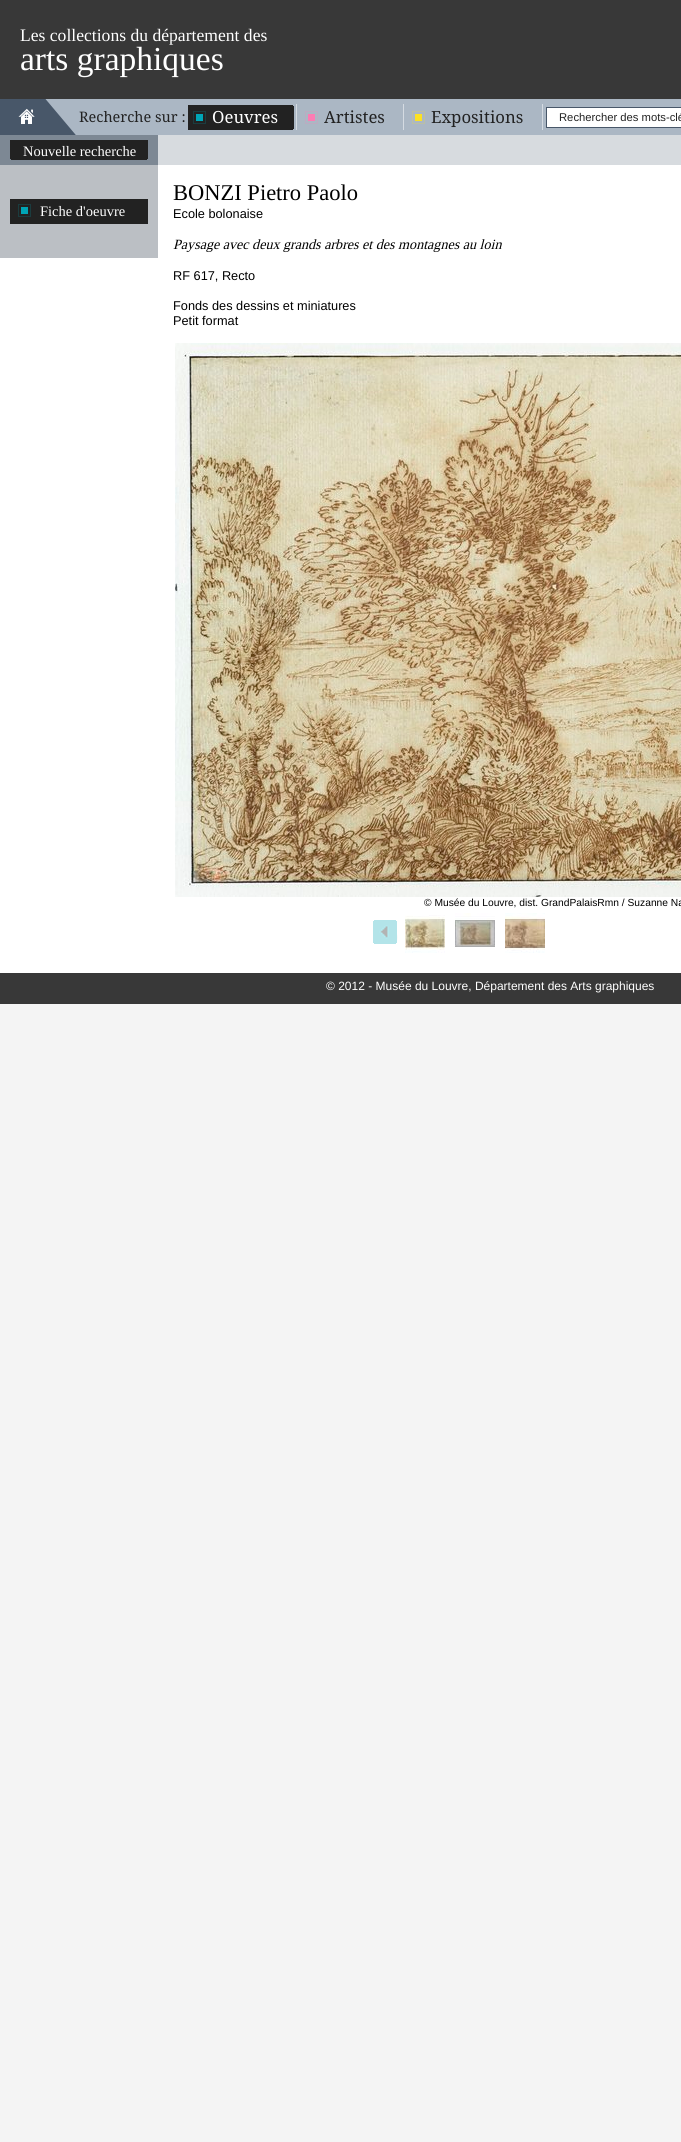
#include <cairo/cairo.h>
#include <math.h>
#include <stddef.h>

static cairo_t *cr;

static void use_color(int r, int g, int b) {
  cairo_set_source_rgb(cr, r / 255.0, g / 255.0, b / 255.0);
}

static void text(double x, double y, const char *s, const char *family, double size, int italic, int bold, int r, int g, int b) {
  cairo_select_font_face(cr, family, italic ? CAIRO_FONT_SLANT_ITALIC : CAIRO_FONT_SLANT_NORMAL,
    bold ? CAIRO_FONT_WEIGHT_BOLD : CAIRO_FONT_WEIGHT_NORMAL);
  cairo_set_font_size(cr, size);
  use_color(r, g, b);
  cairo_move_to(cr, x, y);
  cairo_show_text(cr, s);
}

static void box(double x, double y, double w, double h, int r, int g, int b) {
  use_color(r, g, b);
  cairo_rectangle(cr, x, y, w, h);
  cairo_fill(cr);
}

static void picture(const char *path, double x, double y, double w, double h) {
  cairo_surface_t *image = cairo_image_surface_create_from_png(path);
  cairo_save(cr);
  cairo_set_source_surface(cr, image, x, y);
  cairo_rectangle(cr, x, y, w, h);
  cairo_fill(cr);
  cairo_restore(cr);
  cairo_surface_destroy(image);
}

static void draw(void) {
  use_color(244, 244, 244);
  cairo_paint(cr);
  box(0, 165, 681, 808, 255, 255, 255);
  box(0, 0, 681, 99, 56, 56, 56);
  box(76, 99, 605, 36, 171, 183, 196);
  picture("img_01.png", 0, 99, 76, 36);
  picture("img_02.png", 18, 108, 17, 16);
  box(296, 104, 1, 26, 213, 219, 226);
  box(188, 105, 105, 25, 34, 34, 34);
  picture("img_03.png", 293, 105, 1, 25);
  picture("img_04.png", 193, 111, 13, 13);
  box(403, 104, 1, 26, 213, 219, 226);
  picture("img_05.png", 305, 111, 13, 13);
  box(542, 104, 1, 26, 213, 219, 226);
  picture("img_06.png", 412, 111, 13, 13);
  use_color(255, 255, 255);
  cairo_rectangle(cr, 546.5, 107.5, 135, 20);
  cairo_fill_preserve(cr);
  use_color(72, 87, 105);
  cairo_set_line_width(cr, 1);
  cairo_stroke(cr);
  box(0, 135, 158, 30, 125, 136, 148);
  box(10, 140, 138, 18, 34, 34, 34);
  picture("img_07.png", 10, 158, 138, 2);
  box(0, 165, 158, 93, 187, 191, 196);
  box(10, 199, 138, 25, 34, 34, 34);
  picture("img_04.png", 18, 204, 13, 13);
  box(158, 135, 523, 30, 215, 219, 223);
  picture("img_08.png", 175, 343, 506, 554);
  picture("img_09.png", 373, 920, 25, 24);
  picture("img_10.png", 405, 915, 40, 38);
  picture("img_11.png", 455, 913, 40, 34);
  picture("img_12.png", 505, 913, 40, 40);
  box(0, 973, 681, 31, 56, 56, 56);
  text(20, 41, "Les collections du département des", "Tinos", 17.6, 0, 0, 255, 255, 255);
  text(20, 70, "arts graphiques", "Tinos", 33.5, 0, 0, 255, 255, 255);
  text(79, 122, "Recherche sur :", "Droid Serif", 14.5, 0, 0, 34, 34, 34);
  text(212, 123, "Oeuvres", "Droid Serif", 16.75, 0, 0, 255, 255, 255);
  text(324, 123, "Artistes", "Droid Serif", 16.75, 0, 0, 34, 34, 34);
  text(431, 123, "Expositions", "Droid Serif", 16.75, 0, 0, 34, 34, 34);
  text(559, 121, "Rechercher des mots-clé", "Liberation Sans", 11.25, 0, 0, 34, 34, 34);
  text(23, 156, "Nouvelle recherche", "Tinos", 14.5, 0, 0, 255, 255, 255);
  text(40, 216, "Fiche d'oeuvre", "Tinos", 14.5, 0, 0, 255, 255, 255);
  text(173, 200, "BONZI Pietro Paolo", "Tinos", 22.5, 0, 0, 0, 0, 0);
  text(173, 218, "Ecole bolonaise", "Liberation Sans", 12.75, 0, 0, 0, 0, 0);
  text(173, 249, "Paysage avec deux grands arbres et des montagnes au loin", "Tinos", 14.1, 1, 0, 0, 0, 0);
  text(173, 280, "RF 617, Recto", "Liberation Sans", 12.75, 0, 0, 0, 0, 0);
  text(173, 310, "Fonds des dessins et miniatures", "Liberation Sans", 12.75, 0, 0, 0, 0, 0);
  text(173, 325, "Petit format", "Liberation Sans", 12.75, 0, 0, 0, 0, 0);
  text(424, 906, "© Musée du Louvre, dist. GrandPalaisRmn / Suzanne Na", "Liberation Sans", 10.25, 0, 0, 0, 0, 0);
  text(326, 990, "© 2012 - Musée du Louvre, Département des Arts graphiques", "Liberation Sans", 12, 0, 0, 255, 255, 255);
}

int main(void) {
  cairo_surface_t *surface = cairo_image_surface_create(CAIRO_FORMAT_RGB24, 681, 2142);
  cr = cairo_create(surface);
  cairo_font_options_t *options = cairo_font_options_create();
  cairo_font_options_set_hint_metrics(options, CAIRO_HINT_METRICS_OFF);
  cairo_font_options_set_hint_style(options, CAIRO_HINT_STYLE_NONE);
  cairo_set_font_options(cr, options);
  cairo_set_miter_limit(cr, 4);
  draw();
  cairo_surface_write_to_png(surface, "out.png");
  cairo_font_options_destroy(options);
  cairo_destroy(cr);
  cairo_surface_destroy(surface);
  return 0;
}
